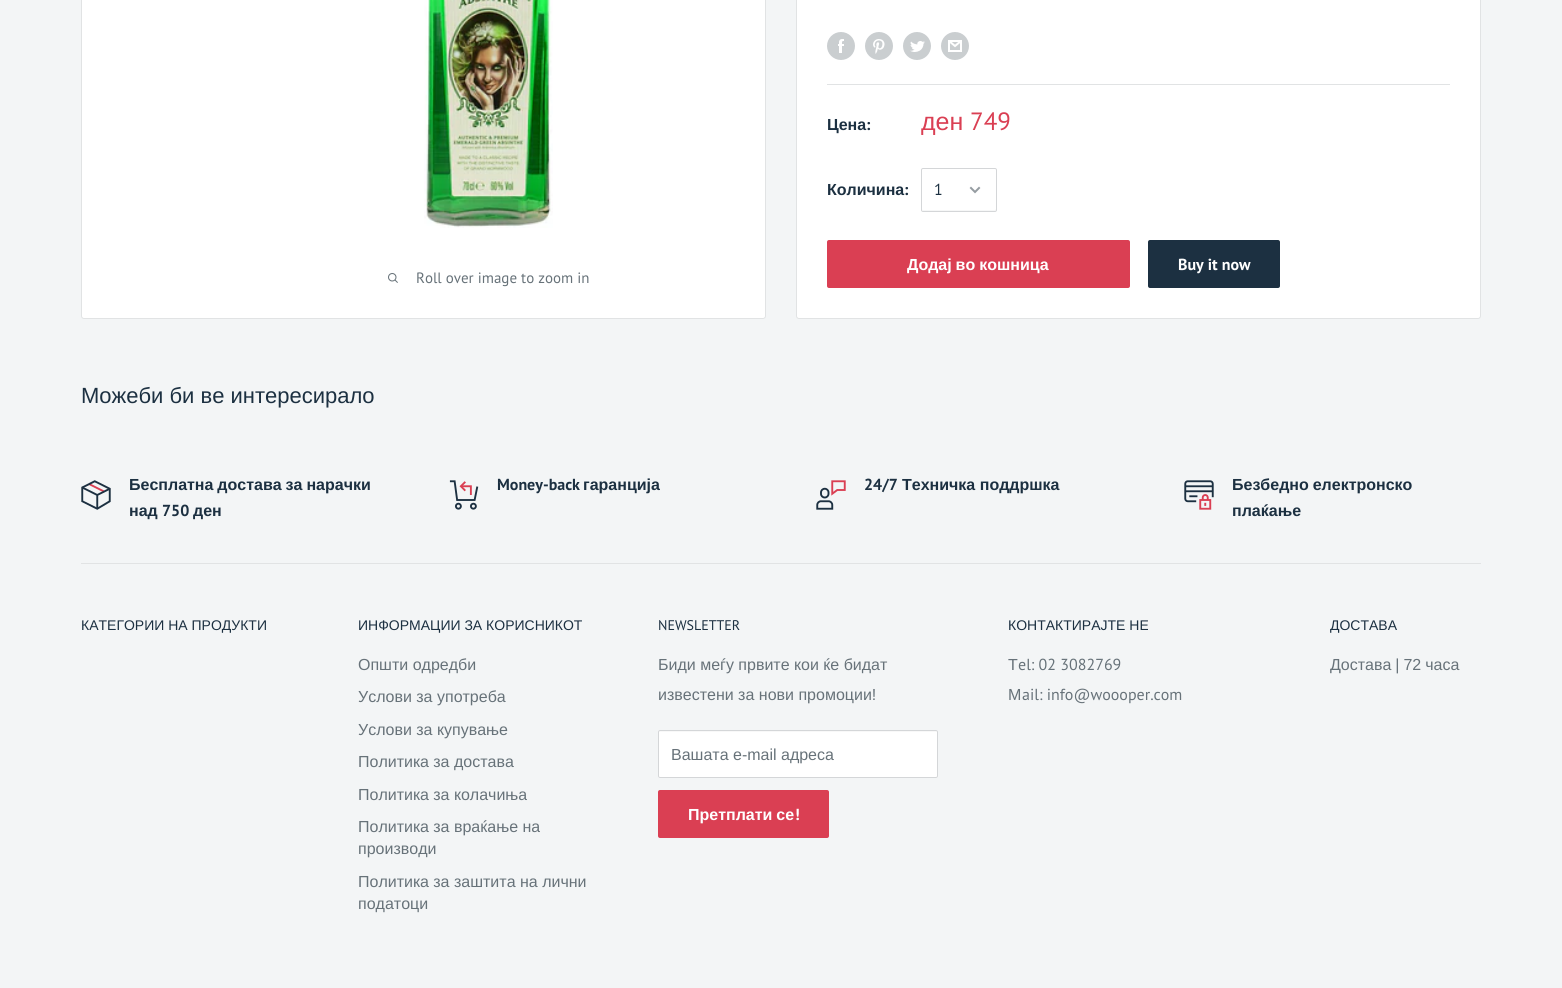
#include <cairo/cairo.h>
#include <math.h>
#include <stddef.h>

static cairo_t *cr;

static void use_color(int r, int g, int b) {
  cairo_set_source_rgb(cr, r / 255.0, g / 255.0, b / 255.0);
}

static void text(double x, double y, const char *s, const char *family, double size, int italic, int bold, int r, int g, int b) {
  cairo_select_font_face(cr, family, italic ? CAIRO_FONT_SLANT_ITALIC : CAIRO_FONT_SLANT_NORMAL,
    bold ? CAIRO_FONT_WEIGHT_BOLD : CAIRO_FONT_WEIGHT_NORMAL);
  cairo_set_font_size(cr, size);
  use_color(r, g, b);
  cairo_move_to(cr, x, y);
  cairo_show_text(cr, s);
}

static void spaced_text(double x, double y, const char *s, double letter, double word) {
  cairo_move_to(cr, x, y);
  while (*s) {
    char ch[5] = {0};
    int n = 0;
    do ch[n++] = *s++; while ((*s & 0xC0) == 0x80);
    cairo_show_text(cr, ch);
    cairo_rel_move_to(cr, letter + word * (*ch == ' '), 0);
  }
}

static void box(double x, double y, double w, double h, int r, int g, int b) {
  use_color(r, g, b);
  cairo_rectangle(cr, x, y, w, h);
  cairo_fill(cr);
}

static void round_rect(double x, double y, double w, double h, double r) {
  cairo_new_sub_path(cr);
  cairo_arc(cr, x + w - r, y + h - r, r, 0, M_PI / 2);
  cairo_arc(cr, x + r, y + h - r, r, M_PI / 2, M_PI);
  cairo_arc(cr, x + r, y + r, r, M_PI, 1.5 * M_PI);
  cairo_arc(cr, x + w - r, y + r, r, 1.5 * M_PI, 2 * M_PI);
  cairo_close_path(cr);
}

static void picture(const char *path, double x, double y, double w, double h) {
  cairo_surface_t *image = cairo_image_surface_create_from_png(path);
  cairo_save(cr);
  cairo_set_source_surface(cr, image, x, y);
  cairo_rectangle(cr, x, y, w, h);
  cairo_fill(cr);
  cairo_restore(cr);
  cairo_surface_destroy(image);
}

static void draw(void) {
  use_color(243, 245, 246);
  cairo_paint(cr);
  use_color(255, 255, 255);
  round_rect(796.5, -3.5, 684, 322, 2.5);
  cairo_fill_preserve(cr);
  use_color(225, 227, 228);
  cairo_set_line_width(cr, 1);
  cairo_stroke(cr);
  picture("img_01.png", 827, 32, 28, 28);
  picture("img_02.png", 865, 32, 28, 28);
  picture("img_03.png", 903, 32, 28, 28);
  picture("img_04.png", 941, 32, 28, 28);
  box(827, 84, 623, 1, 225, 227, 228);
  use_color(246, 247, 247);
  cairo_new_path(cr);
  cairo_move_to(cr, 922, 209);
  cairo_line_to(cr, 923, 211);
  cairo_line_to(cr, 995, 211);
  cairo_curve_to(cr, 996, 211, 996, 210, 996, 209);
  cairo_line_to(cr, 995, 210);
  cairo_line_to(cr, 923, 210);
  cairo_close_path(cr);
  cairo_fill(cr);
  round_rect(921.5, 168.5, 75, 43, 1.5);
  use_color(212, 214, 216);
  cairo_stroke(cr);
  cairo_new_path(cr);
  cairo_move_to(cr, 979, 188);
  cairo_line_to(cr, 975, 192);
  cairo_line_to(cr, 971, 188);
  use_color(149, 156, 161);
  cairo_set_line_width(cr, 2);
  cairo_set_line_cap(cr, CAIRO_LINE_CAP_SQUARE);
  cairo_stroke(cr);
  use_color(218, 63, 83);
  round_rect(827, 240, 303, 48, 2);
  cairo_fill(cr);
  use_color(28, 48, 65);
  round_rect(1148, 240, 132, 48, 2);
  cairo_fill(cr);
  use_color(255, 255, 255);
  round_rect(81.5, -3.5, 684, 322, 2.5);
  cairo_fill_preserve(cr);
  use_color(225, 227, 228);
  cairo_set_line_width(cr, 1);
  cairo_set_line_cap(cr, CAIRO_LINE_CAP_BUTT);
  cairo_stroke(cr);
  picture("img_05.png", 424, 0, 129, 228);
  picture("img_06.png", 388, 273, 10, 10);
  picture("img_07.png", 81, 480, 30, 30);
  picture("img_08.png", 449, 480, 30, 30);
  picture("img_09.png", 816, 480, 30, 30);
  picture("img_10.png", 1184, 480, 30, 30);
  box(81, 563, 1400, 1, 225, 227, 228);
  use_color(255, 255, 255);
  round_rect(658, 730, 280, 48, 2);
  cairo_fill(cr);
  use_color(248, 248, 248);
  cairo_new_path(cr);
  cairo_move_to(cr, 660, 732);
  cairo_line_to(cr, 936, 732);
  cairo_curve_to(cr, 937, 732, 937, 732, 937, 733);
  cairo_curve_to(cr, 937, 732, 937, 731, 936, 731);
  cairo_line_to(cr, 660, 731);
  cairo_line_to(cr, 659, 731);
  cairo_line_to(cr, 659, 733);
  cairo_curve_to(cr, 659, 732, 659, 732, 660, 732);
  cairo_close_path(cr);
  cairo_fill(cr);
  round_rect(658.5, 730.5, 279, 47, 1.5);
  use_color(212, 214, 216);
  cairo_stroke(cr);
  use_color(218, 63, 83);
  round_rect(658, 790, 171, 48, 2);
  cairo_fill(cr);
  text(827, 130, "Цена", "Liberation Sans", 16, 0, 1, 28, 48, 65);
  text(866, 130, ":", "PT Sans", 16, 0, 1, 28, 48, 65);
  text(921, 130, "ден", "Liberation Sans", 25, 0, 0, 218, 63, 83);
  text(970, 130, "749", "PT Sans", 25, 0, 0, 218, 63, 83);
  text(827, 195, "Количина", "Liberation Sans", 16, 0, 1, 28, 48, 65);
  text(904, 195, ":", "PT Sans", 16, 0, 1, 28, 48, 65);
  text(934, 195, "1", "PT Sans", 16, 0, 0, 28, 48, 65);
  cairo_select_font_face(cr, "Liberation Sans", CAIRO_FONT_SLANT_NORMAL, CAIRO_FONT_WEIGHT_BOLD);
  use_color(255, 255, 255);
  spaced_text(907, 270, "Додај во кошница", 0, -0.5);
  text(1178, 270, "Buy it now", "PT Sans", 16, 0, 1, 255, 255, 255);
  text(416, 283, "Roll over image to zoom in", "PT Sans", 15, 0, 0, 103, 114, 121);
  text(81, 403, "Можеби би ве интересирало", "Liberation Sans", 22, 0, 0, 28, 48, 65);
  cairo_select_font_face(cr, "Liberation Sans", CAIRO_FONT_SLANT_NORMAL, CAIRO_FONT_WEIGHT_BOLD);
  cairo_set_font_size(cr, 16);
  spaced_text(129, 490, "Бесплатна достава за нарачки", 0, -0.5);
  text(129, 516, "над", "Liberation Sans", 16, 0, 1, 28, 48, 65);
  text(162, 516, "750", "PT Sans", 16, 0, 1, 28, 48, 65);
  text(193, 516, "ден", "Liberation Sans", 16, 0, 1, 28, 48, 65);
  text(497, 490, "Money-back", "PT Sans", 16, 0, 1, 28, 48, 65);
  text(583, 490, "гаранција", "Liberation Sans", 16, 0, 1, 28, 48, 65);
  text(864, 490, "24/7", "PT Sans", 16, 0, 1, 28, 48, 65);
  text(902, 490, "Техничка поддршка", "Liberation Sans", 16, 0, 1, 28, 48, 65);
  spaced_text(1232, 490, "Безбедно електронско", 0, -0.5);
  text(1232, 516, "плаќање", "Liberation Sans", 16, 0, 1, 28, 48, 65);
  text(81, 630, "КАТЕГОРИИ НА ПРОДУКТИ", "Liberation Sans", 14, 0, 0, 28, 48, 65);
  text(358, 630, "ИНФОРМАЦИИ ЗА КОРИСНИКОТ", "Liberation Sans", 14, 0, 0, 28, 48, 65);
  text(358, 670, "Општи одредби", "Liberation Sans", 16, 0, 0, 103, 114, 121);
  text(358, 702, "Услови за употреба", "Liberation Sans", 16, 0, 0, 103, 114, 121);
  text(358, 735, "Услови за купување", "Liberation Sans", 16, 0, 0, 103, 114, 121);
  text(358, 767, "Политика за достава", "Liberation Sans", 16, 0, 0, 103, 114, 121);
  text(358, 800, "Политика за колачиња", "Liberation Sans", 16, 0, 0, 103, 114, 121);
  text(358, 832, "Политика за враќање на", "Liberation Sans", 16, 0, 0, 103, 114, 121);
  text(358, 854, "производи", "Liberation Sans", 16, 0, 0, 103, 114, 121);
  text(358, 887, "Политика за заштита на лични", "Liberation Sans", 16, 0, 0, 103, 114, 121);
  text(358, 909, "податоци", "Liberation Sans", 16, 0, 0, 103, 114, 121);
  text(658, 630, "NEWSLETTER", "PT Sans", 14, 0, 0, 28, 48, 65);
  text(658, 670, "Биди меѓу првите кои ќе бидат", "Liberation Sans", 16, 0, 0, 103, 114, 121);
  text(658, 700, "известени за нови промоции!", "Liberation Sans", 16, 0, 0, 103, 114, 121);
  text(671, 760, "Вашата e-mail адреса", "Liberation Sans", 16, 0, 0, 103, 114, 121);
  cairo_select_font_face(cr, "Liberation Sans", CAIRO_FONT_SLANT_NORMAL, CAIRO_FONT_WEIGHT_BOLD);
  use_color(255, 255, 255);
  spaced_text(688, 820, "Претплати се", 0, -0.5);
  text(795, 820, "!", "PT Sans", 16, 0, 1, 255, 255, 255);
  text(1008, 630, "КОНТАКТИРАЈТЕ НЕ", "Liberation Sans", 14, 0, 0, 28, 48, 65);
  text(1008, 670, "Т", "Liberation Sans", 16, 0, 0, 103, 114, 121);
  text(1018, 670, "el: 02 3082769", "PT Sans", 16, 0, 0, 103, 114, 121);
  text(1008, 700, "М", "Liberation Sans", 16, 0, 0, 103, 114, 121);
  text(1022, 700, "ail: info@woooper.com", "PT Sans", 16, 0, 0, 103, 114, 121);
  text(1330, 630, "ДОСТАВА", "Liberation Sans", 14, 0, 0, 28, 48, 65);
  cairo_set_font_size(cr, 16);
  use_color(103, 114, 121);
  spaced_text(1330, 670, "Достава | 72 часа", 0, -0.5);
}

int main(void) {
  cairo_surface_t *surface = cairo_image_surface_create(CAIRO_FORMAT_RGB24, 1562, 988);
  cr = cairo_create(surface);
  cairo_font_options_t *options = cairo_font_options_create();
  cairo_font_options_set_hint_metrics(options, CAIRO_HINT_METRICS_OFF);
  cairo_font_options_set_hint_style(options, CAIRO_HINT_STYLE_NONE);
  cairo_set_font_options(cr, options);
  cairo_set_miter_limit(cr, 4);
  draw();
  cairo_surface_write_to_png(surface, "out.png");
  cairo_font_options_destroy(options);
  cairo_destroy(cr);
  cairo_surface_destroy(surface);
  return 0;
}
